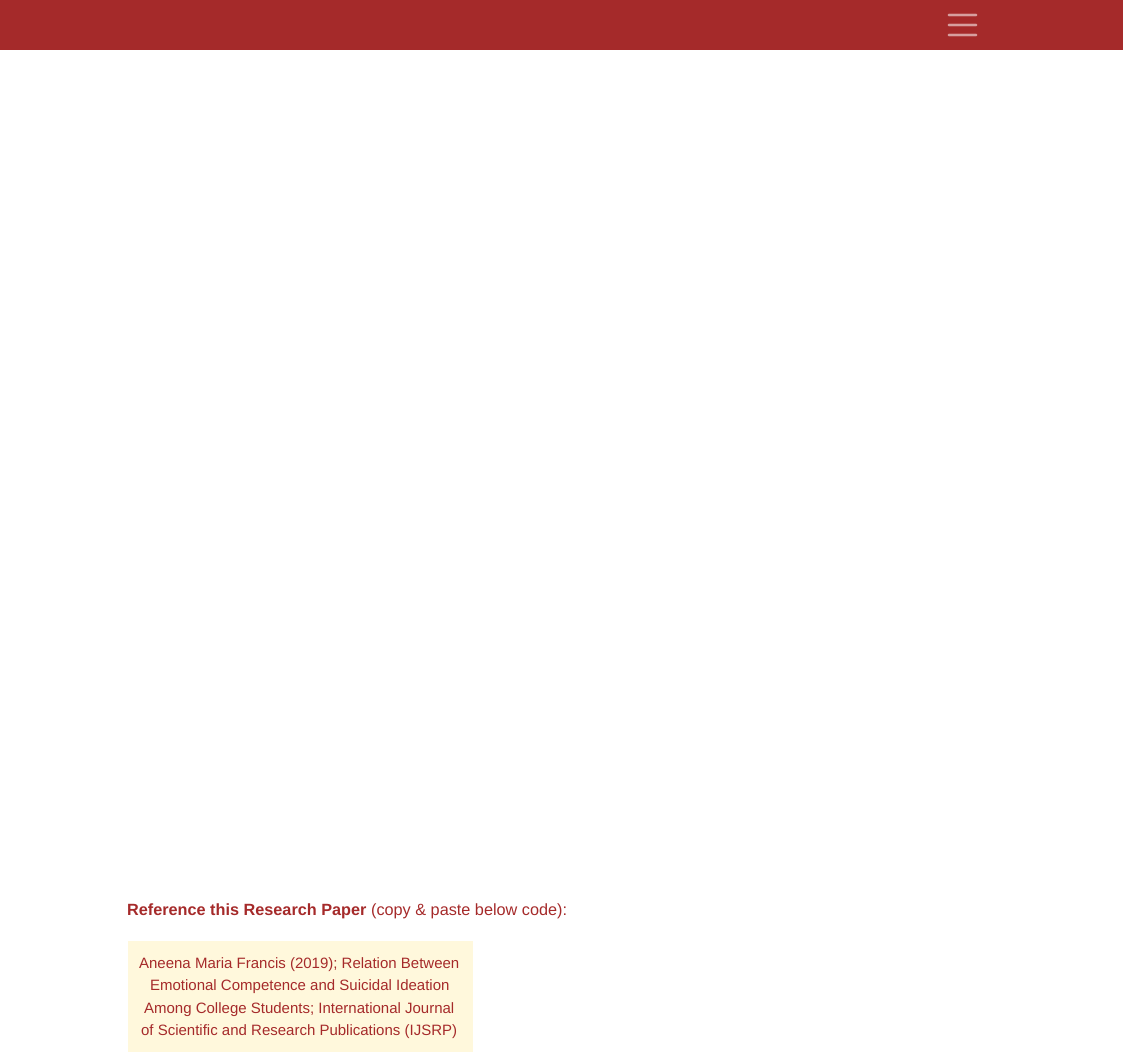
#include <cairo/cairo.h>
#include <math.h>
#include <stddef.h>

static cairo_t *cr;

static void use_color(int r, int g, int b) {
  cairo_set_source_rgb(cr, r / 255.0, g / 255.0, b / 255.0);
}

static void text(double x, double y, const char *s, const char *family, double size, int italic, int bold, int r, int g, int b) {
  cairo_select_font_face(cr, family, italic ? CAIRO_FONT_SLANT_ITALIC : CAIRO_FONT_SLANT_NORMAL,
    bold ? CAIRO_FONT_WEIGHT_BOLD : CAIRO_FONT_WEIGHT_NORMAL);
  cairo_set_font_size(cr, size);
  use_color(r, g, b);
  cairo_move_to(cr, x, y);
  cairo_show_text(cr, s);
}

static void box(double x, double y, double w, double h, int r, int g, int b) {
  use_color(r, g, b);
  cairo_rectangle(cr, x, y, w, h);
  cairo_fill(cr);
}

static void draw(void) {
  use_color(255, 255, 255);
  cairo_paint(cr);
  box(0, 0, 1123, 50, 165, 42, 42);
  cairo_new_path(cr);
  cairo_move_to(cr, 949, 15);
  cairo_line_to(cr, 976, 15);
  cairo_move_to(cr, 949, 25);
  cairo_line_to(cr, 976, 25);
  cairo_move_to(cr, 949, 35);
  cairo_line_to(cr, 976, 35);
  use_color(215, 159, 159);
  cairo_set_line_width(cr, 2.5);
  cairo_set_line_cap(cr, CAIRO_LINE_CAP_ROUND);
  cairo_stroke(cr);
  box(128, 941, 345, 111, 255, 248, 220);
  text(127, 915, "Reference this Research Paper", "Liberation Sans", 16.25, 0, 1, 165, 42, 42);
  text(371, 915, "(copy & paste below code):", "Liberation Sans", 16.25, 0, 0, 165, 42, 42);
  text(139, 968, "Aneena Maria Francis (2019); Relation Between", "Liberation Sans", 15, 0, 0, 165, 42, 42);
  text(150, 990, "Emotional Competence and Suicidal Ideation", "Liberation Sans", 15, 0, 0, 165, 42, 42);
  text(144, 1013, "Among College Students; International Journal", "Liberation Sans", 15, 0, 0, 165, 42, 42);
  text(141, 1035, "of Scientific and Research Publications (IJSRP)", "Liberation Sans", 15, 0, 0, 165, 42, 42);
}

int main(void) {
  cairo_surface_t *surface = cairo_image_surface_create(CAIRO_FORMAT_RGB24, 1123, 1052);
  cr = cairo_create(surface);
  cairo_font_options_t *options = cairo_font_options_create();
  cairo_font_options_set_hint_metrics(options, CAIRO_HINT_METRICS_OFF);
  cairo_font_options_set_hint_style(options, CAIRO_HINT_STYLE_NONE);
  cairo_set_font_options(cr, options);
  cairo_set_miter_limit(cr, 4);
  draw();
  cairo_surface_write_to_png(surface, "out.png");
  cairo_font_options_destroy(options);
  cairo_destroy(cr);
  cairo_surface_destroy(surface);
  return 0;
}
